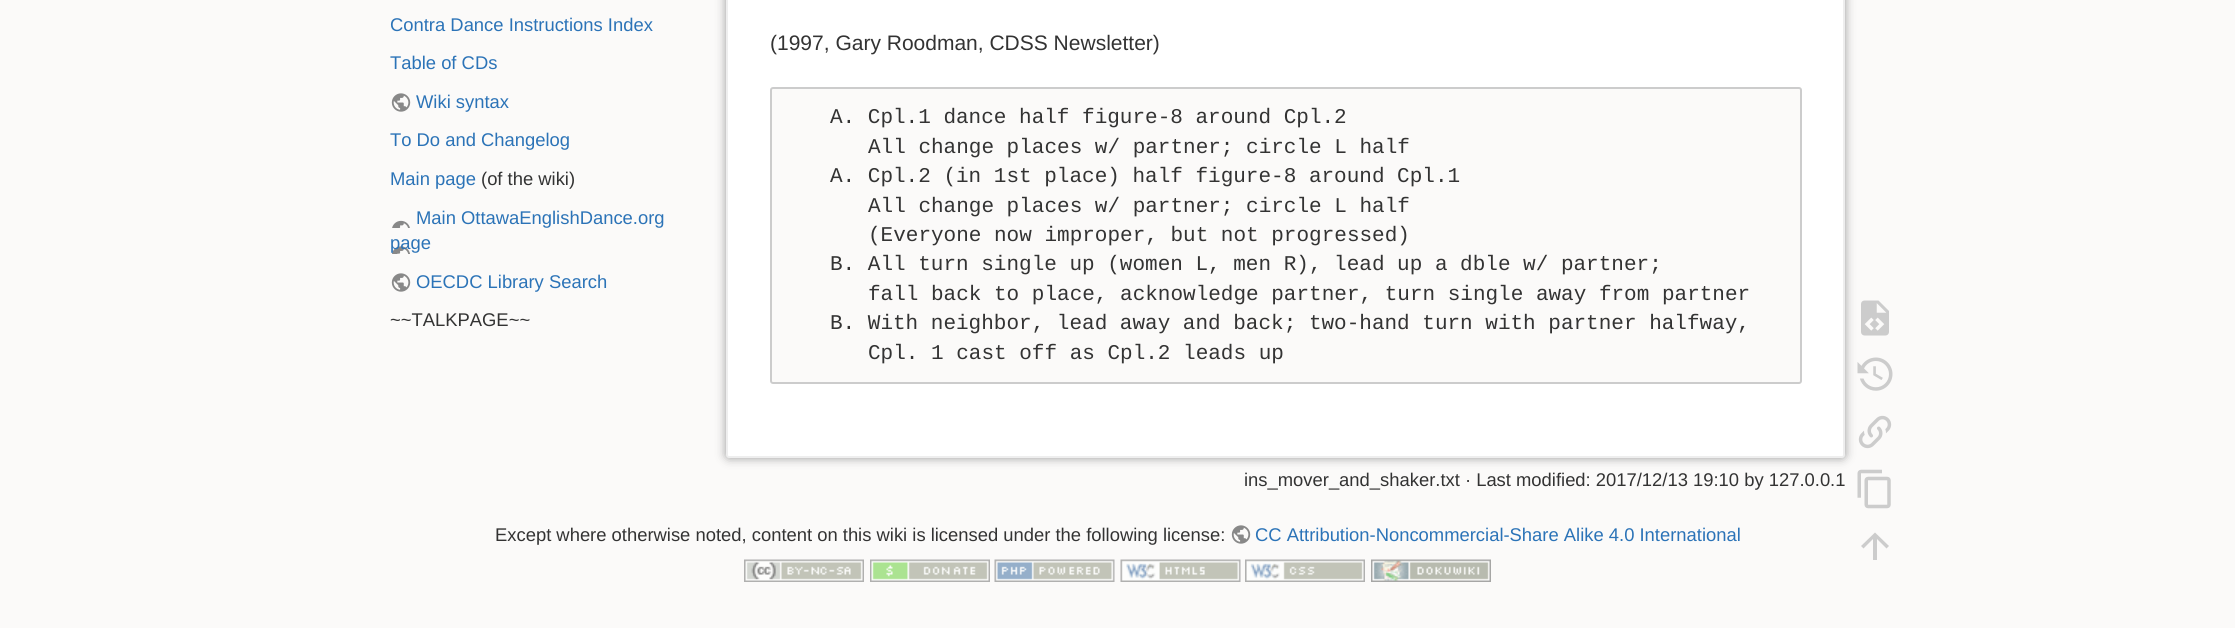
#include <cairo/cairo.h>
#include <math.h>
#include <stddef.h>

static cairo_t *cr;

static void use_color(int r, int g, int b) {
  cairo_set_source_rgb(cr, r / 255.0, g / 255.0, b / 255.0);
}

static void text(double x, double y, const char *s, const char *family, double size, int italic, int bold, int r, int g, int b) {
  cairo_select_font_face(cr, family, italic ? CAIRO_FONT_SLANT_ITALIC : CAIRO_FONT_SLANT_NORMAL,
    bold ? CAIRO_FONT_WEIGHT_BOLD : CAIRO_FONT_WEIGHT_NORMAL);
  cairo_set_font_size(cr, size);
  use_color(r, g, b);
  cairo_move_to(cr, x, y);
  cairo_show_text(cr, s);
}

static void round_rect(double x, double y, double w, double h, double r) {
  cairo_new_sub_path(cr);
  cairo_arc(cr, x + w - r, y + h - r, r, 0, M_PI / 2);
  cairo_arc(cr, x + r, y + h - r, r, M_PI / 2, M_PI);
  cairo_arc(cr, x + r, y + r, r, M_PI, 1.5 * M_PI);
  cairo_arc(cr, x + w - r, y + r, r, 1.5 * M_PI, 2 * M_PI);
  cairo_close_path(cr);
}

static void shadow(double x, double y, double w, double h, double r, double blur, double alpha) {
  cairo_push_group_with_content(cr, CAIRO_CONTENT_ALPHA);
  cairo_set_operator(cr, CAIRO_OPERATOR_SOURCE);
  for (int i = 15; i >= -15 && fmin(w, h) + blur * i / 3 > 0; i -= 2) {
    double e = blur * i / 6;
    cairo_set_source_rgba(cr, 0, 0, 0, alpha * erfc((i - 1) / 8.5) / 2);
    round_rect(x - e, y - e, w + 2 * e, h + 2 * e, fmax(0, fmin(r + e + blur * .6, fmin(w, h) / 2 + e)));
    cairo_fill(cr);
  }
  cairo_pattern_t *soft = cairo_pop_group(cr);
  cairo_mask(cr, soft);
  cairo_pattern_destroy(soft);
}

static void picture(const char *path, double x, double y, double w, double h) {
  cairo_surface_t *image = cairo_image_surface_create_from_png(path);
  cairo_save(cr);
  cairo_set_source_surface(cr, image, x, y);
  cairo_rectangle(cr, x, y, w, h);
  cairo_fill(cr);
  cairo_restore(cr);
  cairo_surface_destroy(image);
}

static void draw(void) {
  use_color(251, 250, 249);
  cairo_paint(cr);
  picture("img_01.png", 391, 93, 20, 19);
  picture("img_02.png", 392, 220, 18, 34);
  picture("img_01.png", 391, 273, 20, 19);
  use_color(153, 153, 153);
  shadow(726, -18, 1119, 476, 3, 5, 1);
  use_color(255, 255, 255);
  round_rect(727, -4, 1117, 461, 2);
  cairo_fill_preserve(cr);
  use_color(238, 238, 238);
  cairo_stroke(cr);
  use_color(251, 250, 249);
  round_rect(771, 88, 1030, 295, 2);
  cairo_fill_preserve(cr);
  use_color(204, 204, 204);
  cairo_stroke(cr);
  picture("img_03.png", 1861, 300, 28, 36);
  picture("img_04.png", 1857, 357, 36, 34);
  picture("img_05.png", 1858, 415, 34, 34);
  picture("img_06.png", 1857, 469, 34, 40);
  cairo_new_path(cr);
  cairo_move_to(cr, 1877, 560);
  cairo_line_to(cr, 1873, 560);
  cairo_line_to(cr, 1873, 539);
  cairo_line_to(cr, 1863.5, 548.5);
  cairo_line_to(cr, 1861, 546);
  cairo_line_to(cr, 1875, 532.5);
  cairo_line_to(cr, 1889, 546);
  cairo_line_to(cr, 1886.5, 548.5);
  cairo_line_to(cr, 1877, 539);
  cairo_close_path(cr);
  cairo_fill(cr);
  picture("img_01.png", 1231, 525, 20, 19);
  picture("img_07.png", 744, 559, 120, 23);
  picture("img_08.png", 870, 559, 120, 23);
  picture("img_09.png", 994, 559, 121, 23);
  picture("img_10.png", 1120, 559, 121, 23);
  picture("img_11.png", 1245, 559, 120, 23);
  picture("img_12.png", 1371, 559, 120, 23);
  text(390, 31, "Contra Dance Instructions Index", "Liberation Sans", 18.4, 0, 0, 43, 115, 183);
  text(390, 69, "Table of CDs", "Liberation Sans", 18.4, 0, 0, 43, 115, 183);
  text(416, 108, "Wiki syntax", "Liberation Sans", 18.4, 0, 0, 43, 115, 183);
  text(390, 146, "To Do and Changelog", "Liberation Sans", 18.4, 0, 0, 43, 115, 183);
  text(390, 185, "Main page", "Liberation Sans", 18.4, 0, 0, 43, 115, 183);
  text(481, 185, "(of the wiki)", "Liberation Sans", 18.4, 0, 0, 51, 51, 51);
  text(416, 224, "Main OttawaEnglishDance.org", "Liberation Sans", 18.4, 0, 0, 43, 115, 183);
  text(390, 249, "page", "Liberation Sans", 18.4, 0, 0, 43, 115, 183);
  text(416, 288, "OECDC Library Search", "Liberation Sans", 18.4, 0, 0, 43, 115, 183);
  text(390, 326, "~~TALKPAGE~~", "Liberation Sans", 18.4, 0, 0, 51, 51, 51);
  text(770, 50, "(1997, Gary Roodman, CDSS Newsletter)", "Liberation Sans", 21, 0, 0, 51, 51, 51);
  text(830, 123, "A. Cpl.1 dance half figure-8 around Cpl.2", "Liberation Mono", 21, 0, 0, 51, 51, 51);
  text(868, 153, "All change places w/ partner; circle L half", "Liberation Mono", 21, 0, 0, 51, 51, 51);
  text(830, 182, "A. Cpl.2 (in 1st place) half figure-8 around Cpl.1", "Liberation Mono", 21, 0, 0, 51, 51, 51);
  text(868, 212, "All change places w/ partner; circle L half", "Liberation Mono", 21, 0, 0, 51, 51, 51);
  text(868, 241, "(Everyone now improper, but not progressed)", "Liberation Mono", 21, 0, 0, 51, 51, 51);
  text(830, 270, "B. All turn single up (women L, men R), lead up a dble w/ partner;", "Liberation Mono", 21, 0, 0, 51, 51, 51);
  text(868, 300, "fall back to place, acknowledge partner, turn single away from partner", "Liberation Mono", 21, 0, 0, 51, 51, 51);
  text(830, 329, "B. With neighbor, lead away and back; two-hand turn with partner halfway,", "Liberation Mono", 21, 0, 0, 51, 51, 51);
  text(868, 359, "Cpl. 1 cast off as Cpl.2 leads up", "Liberation Mono", 21, 0, 0, 51, 51, 51);
  text(1244, 486, "ins_mover_and_shaker.txt · Last modified: 2017/12/13 19:10 by 127.0.0.1", "Liberation Sans", 18.4, 0, 0, 51, 51, 51);
  text(495, 541, "Except where otherwise noted, content on this wiki is licensed under the following license:", "Liberation Sans", 18.4, 0, 0, 51, 51, 51);
  text(1255, 541, "CC Attribution-Noncommercial-Share Alike 4.0 International", "Liberation Sans", 18.4, 0, 0, 43, 115, 183);
}

int main(void) {
  cairo_surface_t *surface = cairo_image_surface_create(CAIRO_FORMAT_RGB24, 2235, 628);
  cr = cairo_create(surface);
  cairo_font_options_t *options = cairo_font_options_create();
  cairo_font_options_set_hint_metrics(options, CAIRO_HINT_METRICS_OFF);
  cairo_font_options_set_hint_style(options, CAIRO_HINT_STYLE_NONE);
  cairo_set_font_options(cr, options);
  cairo_set_miter_limit(cr, 4);
  draw();
  cairo_surface_write_to_png(surface, "out.png");
  cairo_font_options_destroy(options);
  cairo_destroy(cr);
  cairo_surface_destroy(surface);
  return 0;
}
